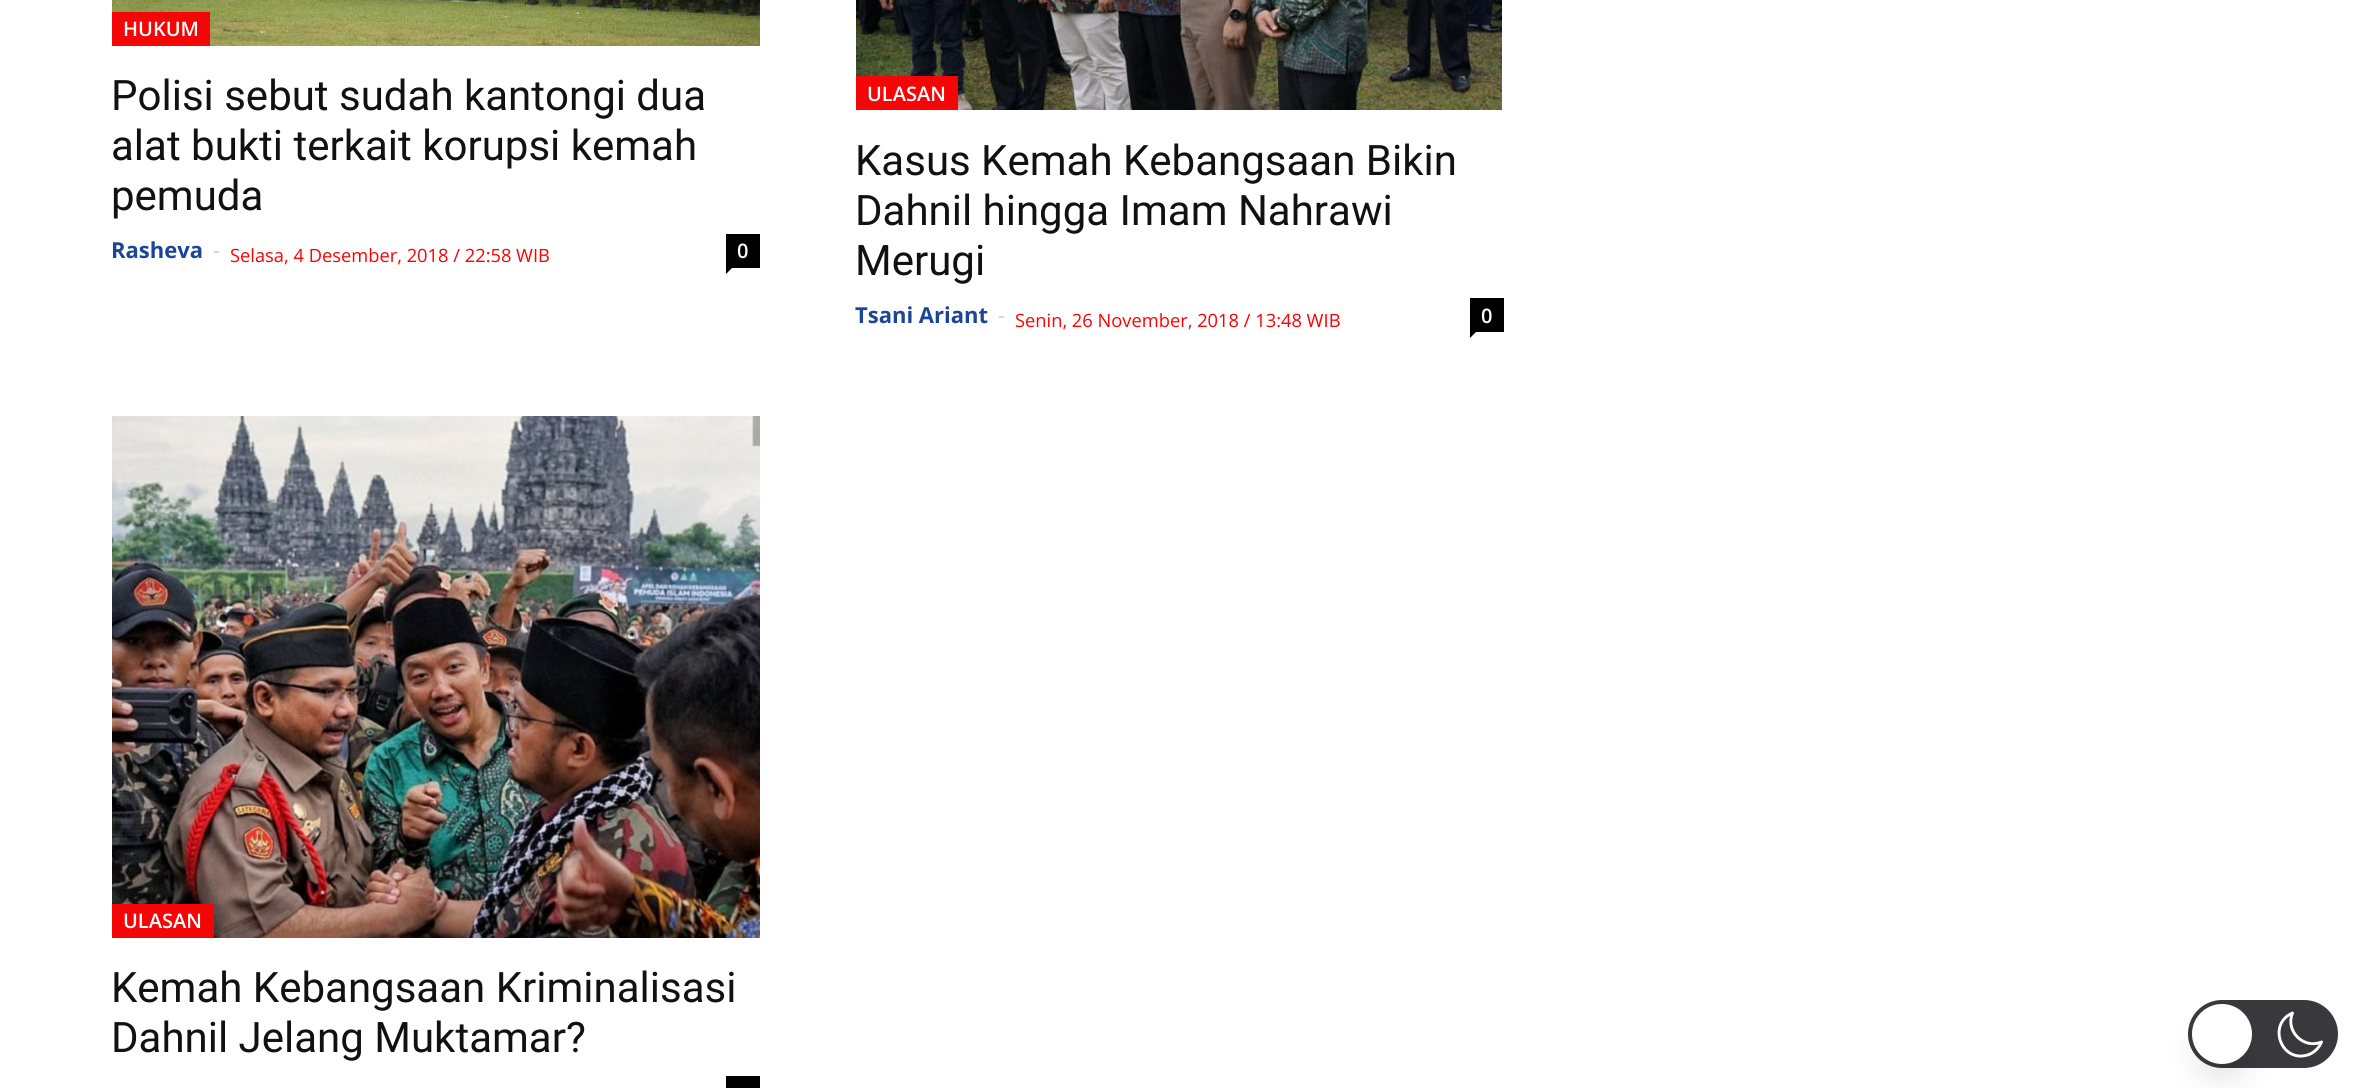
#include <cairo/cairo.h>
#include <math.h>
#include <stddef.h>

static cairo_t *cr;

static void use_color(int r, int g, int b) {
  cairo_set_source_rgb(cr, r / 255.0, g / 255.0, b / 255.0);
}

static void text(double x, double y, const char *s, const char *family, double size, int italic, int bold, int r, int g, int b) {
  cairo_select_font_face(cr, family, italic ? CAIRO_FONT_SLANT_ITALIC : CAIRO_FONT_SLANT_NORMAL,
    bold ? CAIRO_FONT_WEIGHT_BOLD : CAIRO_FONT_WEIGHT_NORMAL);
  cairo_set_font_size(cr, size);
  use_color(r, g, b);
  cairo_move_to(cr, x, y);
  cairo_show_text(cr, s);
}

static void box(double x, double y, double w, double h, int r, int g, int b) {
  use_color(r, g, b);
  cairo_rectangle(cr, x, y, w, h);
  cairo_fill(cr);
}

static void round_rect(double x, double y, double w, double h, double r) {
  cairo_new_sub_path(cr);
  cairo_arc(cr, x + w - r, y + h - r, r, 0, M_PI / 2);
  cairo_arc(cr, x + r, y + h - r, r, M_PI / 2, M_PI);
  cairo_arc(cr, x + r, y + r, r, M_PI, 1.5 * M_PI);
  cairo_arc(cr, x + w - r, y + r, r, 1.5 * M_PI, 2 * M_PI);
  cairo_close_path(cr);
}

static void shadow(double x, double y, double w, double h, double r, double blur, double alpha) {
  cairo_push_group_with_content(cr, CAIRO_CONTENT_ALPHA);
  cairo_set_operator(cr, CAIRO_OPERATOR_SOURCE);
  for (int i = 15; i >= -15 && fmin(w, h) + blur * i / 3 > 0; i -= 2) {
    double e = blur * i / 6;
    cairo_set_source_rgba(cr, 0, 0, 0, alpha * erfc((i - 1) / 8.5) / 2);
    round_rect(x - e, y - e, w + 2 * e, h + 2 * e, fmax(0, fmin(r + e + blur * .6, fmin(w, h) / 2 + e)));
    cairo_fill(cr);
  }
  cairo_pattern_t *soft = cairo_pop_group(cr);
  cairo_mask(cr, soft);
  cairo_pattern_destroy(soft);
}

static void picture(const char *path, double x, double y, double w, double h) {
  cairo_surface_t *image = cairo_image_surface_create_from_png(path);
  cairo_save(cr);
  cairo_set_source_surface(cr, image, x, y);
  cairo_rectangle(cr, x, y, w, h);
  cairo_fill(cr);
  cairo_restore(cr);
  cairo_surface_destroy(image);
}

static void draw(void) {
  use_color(255, 255, 255);
  cairo_paint(cr);
  picture("img_01.png", 112, 0, 648, 46);
  box(112, 12, 98, 34, 245, 6, 6);
  box(726, 234, 34, 34, 0, 0, 0);
  cairo_new_path(cr);
  cairo_move_to(cr, 726, 268);
  cairo_line_to(cr, 732, 268);
  cairo_line_to(cr, 726, 274);
  cairo_close_path(cr);
  cairo_fill(cr);
  picture("img_02.png", 856, 0, 646, 110);
  box(856, 76, 102, 34, 245, 6, 6);
  box(1470, 298, 34, 34, 0, 0, 0);
  cairo_new_path(cr);
  cairo_move_to(cr, 1470, 332);
  cairo_line_to(cr, 1476, 332);
  cairo_line_to(cr, 1470, 338);
  cairo_close_path(cr);
  cairo_fill(cr);
  picture("img_03.png", 112, 416, 648, 522);
  box(112, 904, 102, 34, 245, 6, 6);
  box(726, 1076, 34, 12, 0, 0, 0);
  use_color(57, 57, 61);
  round_rect(2188, 1000, 150, 68, 34);
  cairo_fill(cr);
  cairo_new_path(cr);
  cairo_move_to(cr, 2321.5, 1042);
  cairo_curve_to(cr, 2303.5, 1049.5, 2285, 1031, 2292.5, 1013);
  cairo_curve_to(cr, 2267, 1024, 2281, 1063, 2307.5, 1055);
  cairo_curve_to(cr, 2314, 1053, 2319, 1048, 2321.5, 1042);
  cairo_close_path(cr);
  use_color(255, 255, 255);
  cairo_set_line_width(cr, 2.9);
  cairo_set_line_cap(cr, CAIRO_LINE_CAP_ROUND);
  cairo_set_line_join(cr, CAIRO_LINE_JOIN_ROUND);
  cairo_stroke(cr);
  use_color(0, 0, 0);
  shadow(2198, 1030, 48, 48, 24, 15, 0.1);
  use_color(255, 255, 255);
  cairo_arc(cr, 2222, 1034, 30, 0, 2 * M_PI);
  cairo_fill(cr);
  text(123, 36, "HUKUM", "Open Sans SemiBold", 20, 0, 0, 255, 255, 255);
  text(111, 110, "Polisi sebut sudah kantongi dua", "Roboto", 42, 0, 0, 17, 17, 17);
  text(111, 160, "alat bukti terkait korupsi kemah", "Roboto", 42, 0, 0, 17, 17, 17);
  text(111, 210, "pemuda", "Roboto", 42, 0, 0, 17, 17, 17);
  text(111, 258, "Rasheva", "Open Sans", 22, 0, 1, 28, 69, 151);
  text(213, 258, "-", "Open Sans", 22, 0, 0, 204, 204, 204);
  text(230, 262, "Selasa, 4 Desember, 2018 / 22:58 WIB", "Open Sans", 18.3, 0, 0, 255, 0, 0);
  text(737, 258, "0", "Open Sans SemiBold", 20, 0, 0, 255, 255, 255);
  text(867, 101, "ULASAN", "Open Sans SemiBold", 20, 0, 0, 255, 255, 255);
  text(855, 175, "Kasus Kemah Kebangsaan Bikin", "Roboto", 42, 0, 0, 17, 17, 17);
  text(855, 225, "Dahnil hingga Imam Nahrawi", "Roboto", 42, 0, 0, 17, 17, 17);
  text(855, 275, "Merugi", "Roboto", 42, 0, 0, 17, 17, 17);
  text(855, 323, "Tsani Ariant", "Open Sans", 22, 0, 1, 28, 69, 151);
  text(998, 323, "-", "Open Sans", 22, 0, 0, 204, 204, 204);
  text(1015, 327, "Senin, 26 November, 2018 / 13:48 WIB", "Open Sans", 18.3, 0, 0, 255, 0, 0);
  text(1481, 323, "0", "Open Sans SemiBold", 20, 0, 0, 255, 255, 255);
  text(123, 928, "ULASAN", "Open Sans SemiBold", 20, 0, 0, 255, 255, 255);
  text(111, 1002, "Kemah Kebangsaan Kriminalisasi", "Roboto", 42, 0, 0, 17, 17, 17);
  text(111, 1052, "Dahnil Jelang Muktamar?", "Roboto", 42, 0, 0, 17, 17, 17);
}

int main(void) {
  cairo_surface_t *surface = cairo_image_surface_create(CAIRO_FORMAT_RGB24, 2357, 1088);
  cr = cairo_create(surface);
  cairo_font_options_t *options = cairo_font_options_create();
  cairo_font_options_set_hint_metrics(options, CAIRO_HINT_METRICS_OFF);
  cairo_font_options_set_hint_style(options, CAIRO_HINT_STYLE_NONE);
  cairo_set_font_options(cr, options);
  cairo_set_miter_limit(cr, 4);
  draw();
  cairo_surface_write_to_png(surface, "out.png");
  cairo_font_options_destroy(options);
  cairo_destroy(cr);
  cairo_surface_destroy(surface);
  return 0;
}
